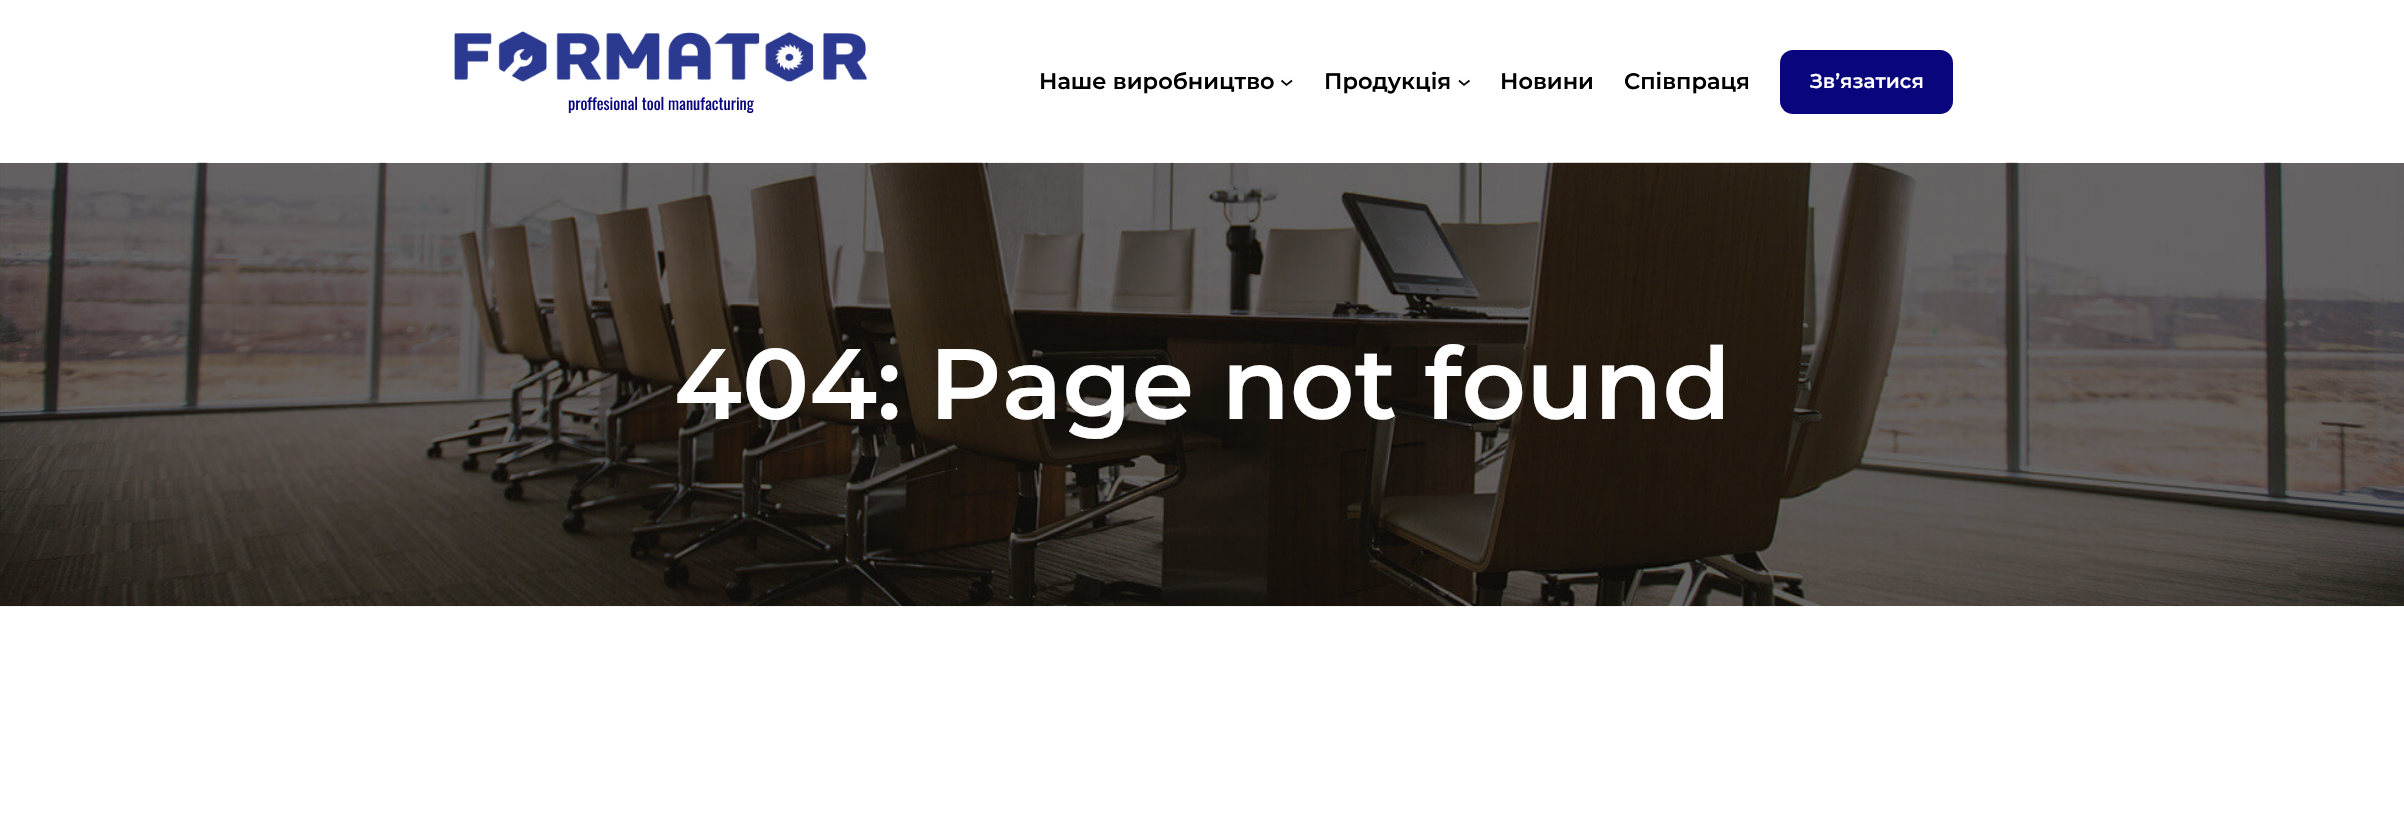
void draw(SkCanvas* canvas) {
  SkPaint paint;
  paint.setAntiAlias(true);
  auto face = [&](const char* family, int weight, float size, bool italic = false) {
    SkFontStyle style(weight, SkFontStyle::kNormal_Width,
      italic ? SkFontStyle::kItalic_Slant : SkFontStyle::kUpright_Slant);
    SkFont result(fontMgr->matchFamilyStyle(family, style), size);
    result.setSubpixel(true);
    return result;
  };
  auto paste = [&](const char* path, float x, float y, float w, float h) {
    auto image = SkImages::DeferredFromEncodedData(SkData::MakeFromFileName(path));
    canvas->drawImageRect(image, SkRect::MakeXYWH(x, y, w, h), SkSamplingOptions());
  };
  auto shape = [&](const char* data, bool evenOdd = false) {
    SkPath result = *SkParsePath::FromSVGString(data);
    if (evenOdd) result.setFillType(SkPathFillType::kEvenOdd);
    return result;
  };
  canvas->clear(0xffffffff);
  paint.setStroke(true);
  paint.setStrokeWidth(1.7f);
  paint.setColor(0xff000000);
  canvas->drawPath(shape("M1281.5 80.5L1286.5 85L1292 80.5"), paint);
  canvas->drawPath(shape("M1459 80.5L1464 85L1469.5 80.5"), paint);
  paint.setStroke(false);
  paint.setColor(0xff09057d);
  canvas->drawRoundRect(SkRect::MakeXYWH(1780, 50, 173, 64), 13, 13, paint);
  paste("img/1.png", 454, 31, 413, 51);
  paste("img/2.png", 0, 162, 2404, 445);
  auto f0 = face("Montserrat", 600, 22.5f);
  paint.setColor(0xff000000);
  {
    const struct { const char* s; float x, y; } items[] = {
      {"Наше виробництво", 1039, 89},
      {"Продукція", 1324, 89},
      {"Новини", 1500, 89},
      {"Співпраця", 1624, 89},
    };
    for (auto [s, x, y] : items) {
      canvas->drawString(s, x, y, f0, paint);
    }
  }
  auto f1 = face("Montserrat", 600, 20);
  paint.setColor(0xffffffff);
  canvas->drawString("Зв’язатися", 1810, 88, f1, paint);
  auto f2 = face("Oswald", 400, 16.25f);
  paint.setColor(0xff09057d);
  canvas->drawString("proffesional tool manufacturing", 568, 110, f2, paint);
  auto f3 = face("Montserrat", 600, 100);
  paint.setColor(0xffffffff);
  canvas->drawString("404: Page not found", 674, 419, f3, paint);
}
